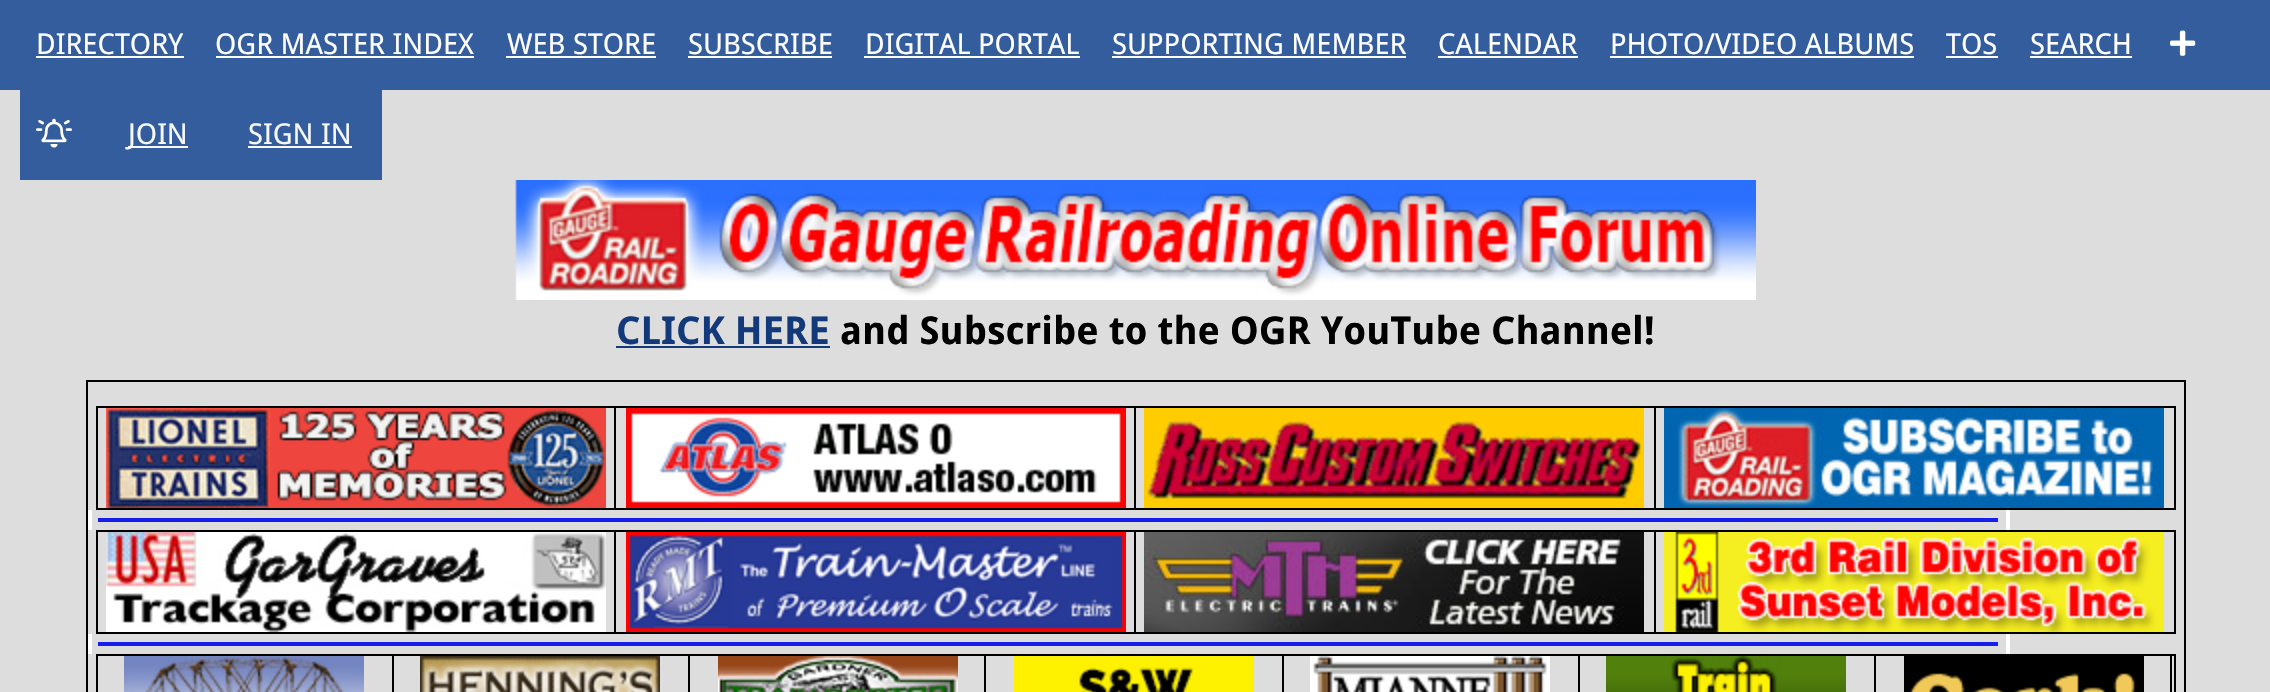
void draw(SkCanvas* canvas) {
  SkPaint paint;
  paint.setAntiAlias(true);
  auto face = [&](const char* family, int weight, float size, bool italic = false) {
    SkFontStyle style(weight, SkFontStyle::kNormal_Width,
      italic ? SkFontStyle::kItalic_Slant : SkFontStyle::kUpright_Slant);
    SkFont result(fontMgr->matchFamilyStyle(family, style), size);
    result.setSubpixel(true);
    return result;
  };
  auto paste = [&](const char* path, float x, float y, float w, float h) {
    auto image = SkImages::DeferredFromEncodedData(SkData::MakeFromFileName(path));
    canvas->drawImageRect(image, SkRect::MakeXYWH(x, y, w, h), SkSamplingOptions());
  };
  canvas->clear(0xffdddddd);
  {
    const struct { float x, y, w, h; SkColor color; } items[] = {
      {0, 0, 2270, 90, 0xff345d9e},
      {36, 56, 148, 2, 0xffffffff},
      {216, 56, 258, 2, 0xffffffff},
      {506, 56, 150, 2, 0xffffffff},
      {688, 56, 144, 2, 0xffffffff},
      {864, 56, 216, 2, 0xffffffff},
      {1112, 56, 294, 2, 0xffffffff},
      {1438, 56, 140, 2, 0xffffffff},
      {1610, 56, 304, 2, 0xffffffff},
      {1946, 56, 52, 2, 0xffffffff},
      {2030, 56, 102, 2, 0xffffffff},
    };
    for (auto [x, y, w, h, color] : items) {
      paint.setColor(color);
      canvas->drawRect(SkRect::MakeXYWH(x, y, w, h), paint);
    }
  }
  paste("img/1.png", 2170, 30, 26, 26);
  paint.setColor(0xff345d9e);
  canvas->drawRect(SkRect::MakeXYWH(20, 90, 362, 90), paint);
  paste("img/2.png", 36, 118, 36, 30);
  paint.setColor(0xfff8f8f8);
  canvas->drawRect(SkRect::MakeXYWH(128, 146, 60, 2), paint);
  canvas->drawRect(SkRect::MakeXYWH(248, 146, 104, 2), paint);
  paste("img/3.png", 515, 180, 1241, 120);
  {
    const struct { float x, y, w, h; SkColor color; } items[] = {
      {616, 346, 214, 2, 0xff123a7a},
      {86, 380, 2100, 2, 0xff000000},
      {2184, 380, 2, 312, 0xff000000},
      {86, 380, 2, 312, 0xff000000},
      {1654, 406, 522, 2, 0xff000000},
      {2174, 406, 2, 104, 0xff000000},
      {1654, 508, 522, 2, 0xff000000},
      {1654, 406, 2, 104, 0xff000000},
      {1134, 406, 522, 2, 0xff000000},
      {1134, 508, 522, 2, 0xff000000},
      {1134, 406, 2, 104, 0xff000000},
      {614, 406, 522, 2, 0xff000000},
      {614, 508, 522, 2, 0xff000000},
      {614, 406, 2, 104, 0xff000000},
      {96, 406, 520, 2, 0xff000000},
      {96, 508, 520, 2, 0xff000000},
      {96, 406, 2, 104, 0xff000000},
    };
    for (auto [x, y, w, h, color] : items) {
      paint.setColor(color);
      canvas->drawRect(SkRect::MakeXYWH(x, y, w, h), paint);
    }
  }
  paste("img/4.png", 106, 408, 500, 100);
  paste("img/5.png", 626, 408, 500, 100);
  paste("img/6.png", 1144, 408, 500, 100);
  paste("img/7.png", 1664, 408, 500, 100);
  {
    const struct { float x, y, w, h; SkColor color; } items[] = {
      {88, 510, 4, 20, 0xffffffff},
      {98, 518, 1900, 4, 0xff141eee},
      {2006, 510, 4, 20, 0xffffffff},
      {1654, 530, 522, 2, 0xff000000},
      {2174, 530, 2, 104, 0xff000000},
      {1654, 632, 522, 2, 0xff000000},
      {1654, 530, 2, 104, 0xff000000},
      {1134, 530, 522, 2, 0xff000000},
      {1134, 632, 522, 2, 0xff000000},
      {1134, 530, 2, 104, 0xff000000},
      {614, 530, 522, 2, 0xff000000},
      {614, 632, 522, 2, 0xff000000},
      {614, 530, 2, 104, 0xff000000},
      {96, 530, 520, 2, 0xff000000},
      {96, 632, 520, 2, 0xff000000},
      {96, 530, 2, 104, 0xff000000},
    };
    for (auto [x, y, w, h, color] : items) {
      paint.setColor(color);
      canvas->drawRect(SkRect::MakeXYWH(x, y, w, h), paint);
    }
  }
  paste("img/8.png", 106, 532, 500, 100);
  paste("img/9.png", 626, 532, 500, 100);
  paste("img/10.png", 1144, 532, 500, 100);
  paste("img/11.png", 1664, 532, 500, 100);
  {
    const struct { float x, y, w, h; SkColor color; } items[] = {
      {88, 634, 4, 20, 0xffffffff},
      {98, 642, 1900, 4, 0xff141eee},
      {2006, 634, 4, 20, 0xffffffff},
      {2170, 654, 6, 2, 0xff000000},
      {2170, 654, 2, 38, 0xff000000},
      {1874, 654, 298, 2, 0xff000000},
      {1874, 654, 2, 38, 0xff000000},
      {1578, 654, 298, 2, 0xff000000},
      {1578, 654, 2, 38, 0xff000000},
      {1282, 654, 298, 2, 0xff000000},
      {1282, 654, 2, 38, 0xff000000},
      {984, 654, 300, 2, 0xff000000},
      {984, 654, 2, 38, 0xff000000},
      {688, 654, 298, 2, 0xff000000},
      {688, 654, 2, 38, 0xff000000},
      {392, 654, 298, 2, 0xff000000},
      {392, 654, 2, 38, 0xff000000},
      {96, 654, 298, 2, 0xff000000},
      {96, 654, 2, 38, 0xff000000},
    };
    for (auto [x, y, w, h, color] : items) {
      paint.setColor(color);
      canvas->drawRect(SkRect::MakeXYWH(x, y, w, h), paint);
    }
  }
  paste("img/12.png", 124, 656, 240, 36);
  paste("img/13.png", 420, 656, 240, 36);
  paste("img/14.png", 718, 656, 240, 36);
  paste("img/15.png", 1014, 656, 240, 36);
  paste("img/16.png", 1310, 656, 240, 36);
  paste("img/17.png", 1606, 656, 240, 36);
  paste("img/18.png", 1904, 656, 240, 36);
  canvas->drawRect(SkRect::MakeXYWH(2174, 654, 2, 38), paint);
  auto f0 = face("Droid Sans", 400, 28.75f);
  paint.setColor(0xffffffff);
  {
    const struct { const char* s; float x, y; } items[] = {
      {"DIRECTORY", 36, 54},
      {"OGR MASTER INDEX", 215, 54},
      {"WEB STORE", 507, 54},
      {"SUBSCRIBE", 688, 54},
      {"DIGITAL PORTAL", 865, 54},
      {"SUPPORTING MEMBER", 1112, 54},
      {"CALENDAR", 1438, 54},
      {"PHOTO/VIDEO ALBUMS", 1610, 54},
      {"TOS", 1946, 54},
      {"SEARCH", 2030, 54},
    };
    for (auto [s, x, y] : items) {
      canvas->drawString(s, x, y, f0, paint);
    }
  }
  paint.setColor(0xfff8f8f8);
  canvas->drawString("JOIN", 128, 144, f0, paint);
  canvas->drawString("SIGN IN", 248, 144, f0, paint);
  auto f1 = face("Droid Sans", 700, 38.4f);
  paint.setColor(0xff123a7a);
  canvas->drawString("CLICK HERE", 616, 344, f1, paint);
  paint.setColor(0xff000000);
  canvas->drawString("and Subscribe to the OGR YouTube Channel!", 840, 344, f1, paint);
}
